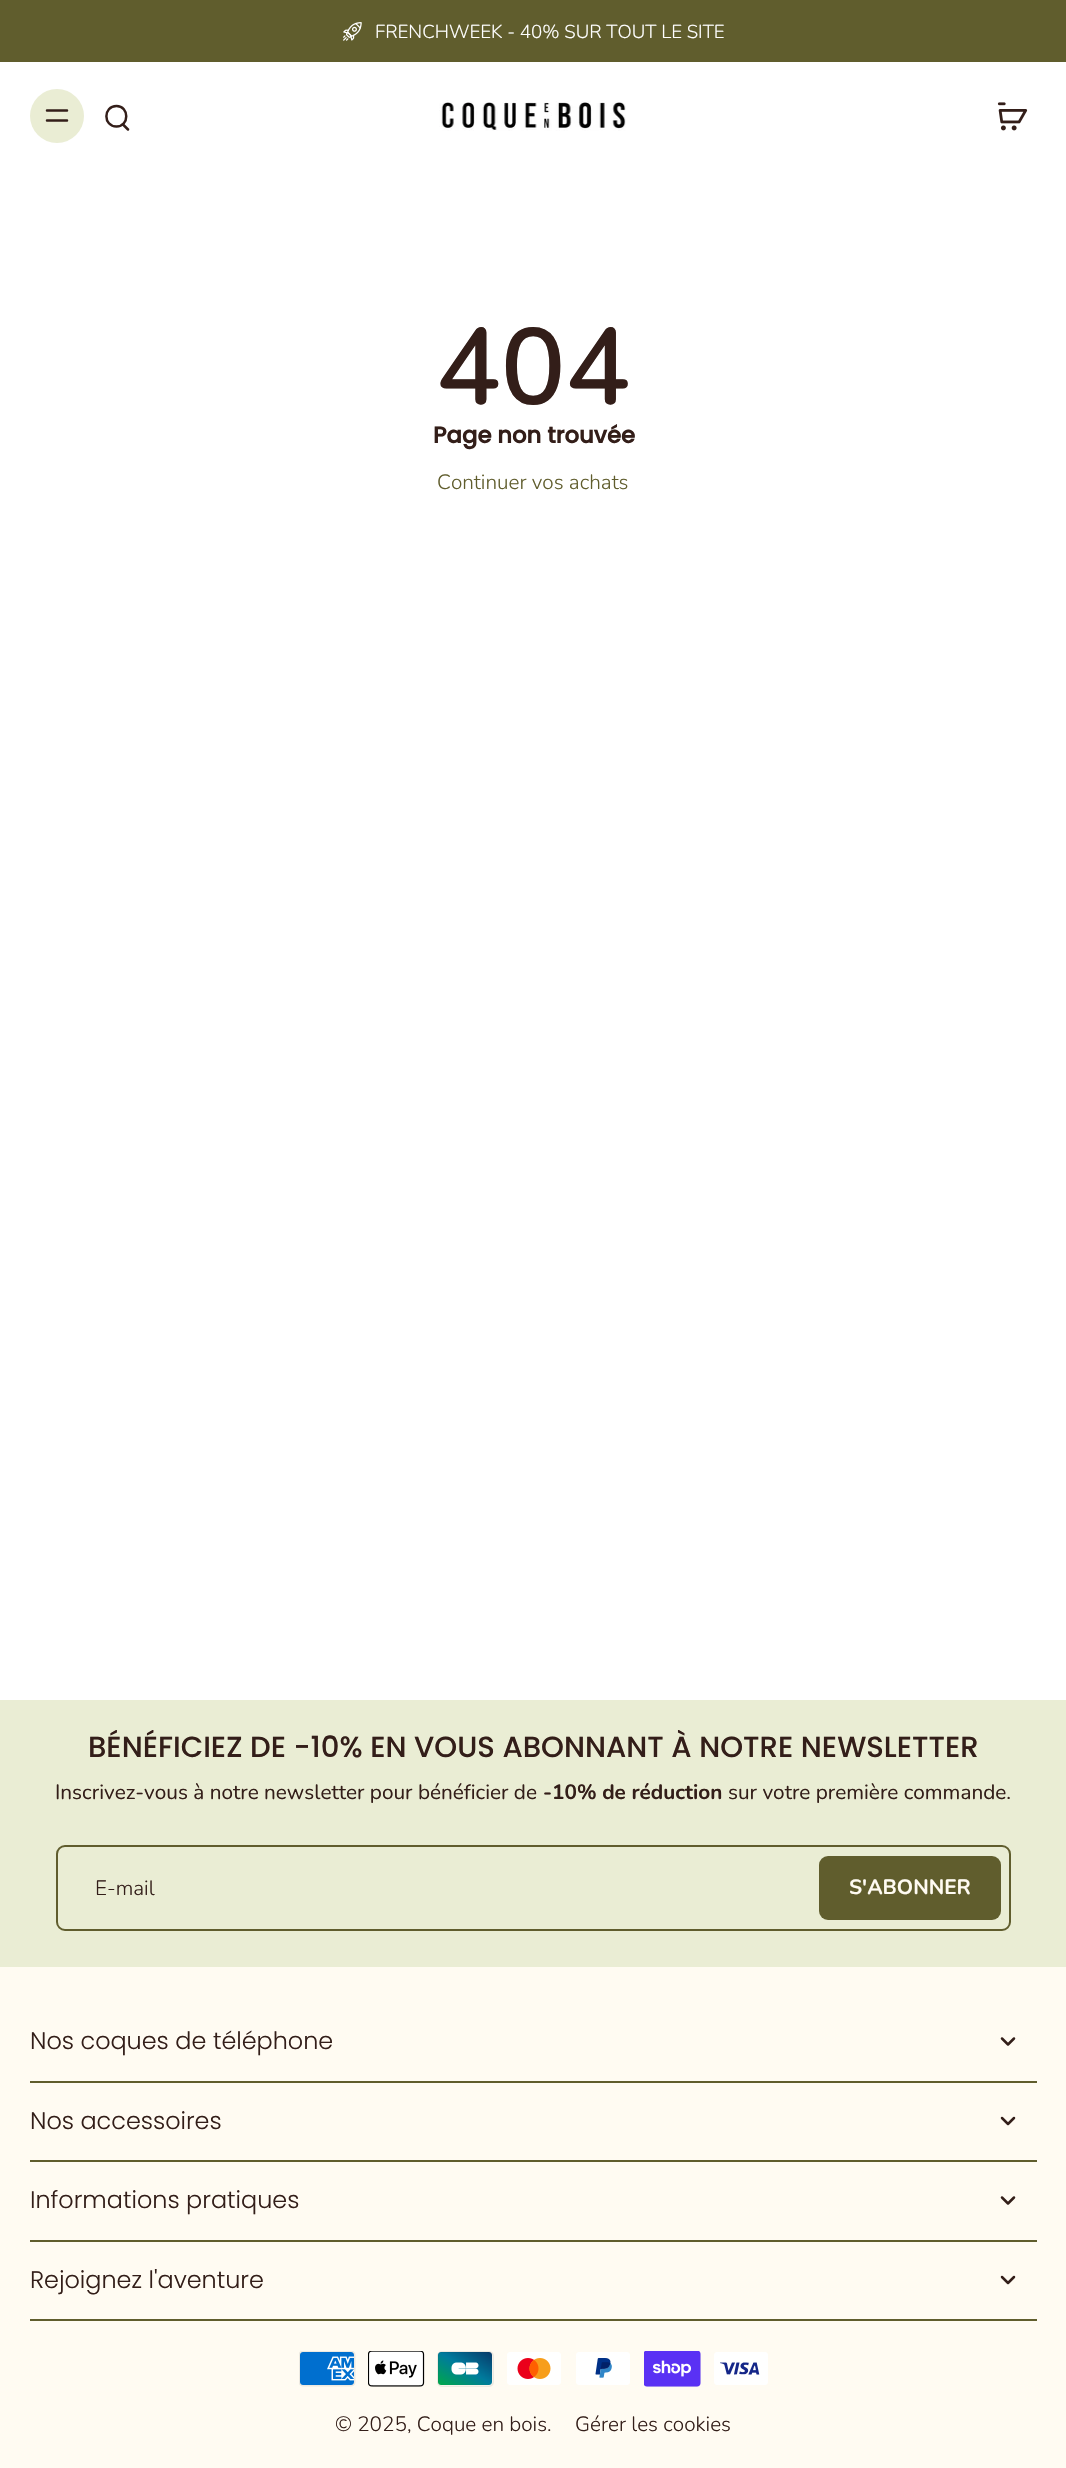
void draw(SkCanvas* canvas) {
  SkPaint paint;
  paint.setAntiAlias(true);
  auto face = [&](const char* family, int weight, float size, bool italic = false) {
    SkFontStyle style(weight, SkFontStyle::kNormal_Width,
      italic ? SkFontStyle::kItalic_Slant : SkFontStyle::kUpright_Slant);
    SkFont result(fontMgr->matchFamilyStyle(family, style), size);
    result.setSubpixel(true);
    return result;
  };
  auto paste = [&](const char* path, float x, float y, float w, float h) {
    auto image = SkImages::DeferredFromEncodedData(SkData::MakeFromFileName(path));
    canvas->drawImageRect(image, SkRect::MakeXYWH(x, y, w, h), SkSamplingOptions());
  };
  auto shape = [&](const char* data, bool evenOdd = false) {
    SkPath result = *SkParsePath::FromSVGString(data);
    if (evenOdd) result.setFillType(SkPathFillType::kEvenOdd);
    return result;
  };
  canvas->clear(0xffffffff);
  paint.setColor(0xff605d2d);
  canvas->drawRect(SkRect::MakeXYWH(0, 0, 1066, 62), paint);
  paste("img/1.png", 343, 22, 19, 19);
  paint.setColor(0xffeaedd4);
  canvas->drawCircle(57, 116, 27, paint);
  paint.setStroke(true);
  paint.setStrokeWidth(2.5f);
  paint.setStrokeCap(SkPaint::kRound_Cap);
  paint.setColor(0xff331e19);
  canvas->drawPath(shape("M47 110.5H67M47 120.5H67"), paint);
  paste("img/2.png", 439, 100, 187, 31);
  paint.setStrokeCap(SkPaint::kButt_Cap);
  canvas->drawPath(shape("M116.5 126.5C129.5 126.5 129.5 106 116.5 106C103 106 103 126.5 116.5 126.5Z"), paint);
  paint.setStrokeCap(SkPaint::kRound_Cap);
  canvas->drawPath(shape("M123 124.5L128 129.5"), paint);
  paste("img/3.png", 997, 102, 31, 29);
  paint.setStroke(false);
  paint.setColor(0xffeaedd4);
  canvas->drawRect(SkRect::MakeXYWH(0, 1700, 1066, 267), paint);
  paint.setStroke(true);
  paint.setStrokeWidth(2);
  paint.setStrokeCap(SkPaint::kButt_Cap);
  paint.setColor(0xff605d2d);
  canvas->drawRoundRect(SkRect::MakeXYWH(57, 1846, 953, 84), 8, 8, paint);
  paint.setStroke(false);
  canvas->drawRoundRect(SkRect::MakeXYWH(819, 1856, 182, 64), 9, 9, paint);
  paint.setColor(0xfffffbf2);
  canvas->drawRect(SkRect::MakeXYWH(0, 1967, 1066, 501), paint);
  paint.setColor(0xff605d2d);
  canvas->drawRect(SkRect::MakeXYWH(30, 2081, 1007, 2), paint);
  paint.setStroke(true);
  paint.setStrokeWidth(2.5f);
  paint.setStrokeCap(SkPaint::kRound_Cap);
  paint.setStrokeJoin(SkPaint::kRound_Join);
  paint.setColor(0xff331e19);
  canvas->drawPath(shape("M1002 2038.5L1008 2044.5L1014 2038.5"), paint);
  paint.setStroke(false);
  paint.setColor(0xff605d2d);
  canvas->drawRect(SkRect::MakeXYWH(30, 2160, 1007, 2), paint);
  paint.setStroke(true);
  paint.setColor(0xff331e19);
  canvas->drawPath(shape("M1002 2118L1008 2124L1014 2118"), paint);
  paint.setStroke(false);
  paint.setColor(0xff605d2d);
  canvas->drawRect(SkRect::MakeXYWH(30, 2240, 1007, 2), paint);
  paint.setStroke(true);
  paint.setColor(0xff331e19);
  canvas->drawPath(shape("M1002 2197.5L1008 2203.5L1014 2197.5"), paint);
  paint.setStroke(false);
  paint.setColor(0xff605d2d);
  canvas->drawRect(SkRect::MakeXYWH(30, 2319, 1007, 2), paint);
  paint.setStroke(true);
  paint.setColor(0xff331e19);
  canvas->drawPath(shape("M1002 2277L1008 2283L1014 2277"), paint);
  paste("img/4.png", 299, 2351, 57, 36);
  paste("img/5.png", 368, 2351, 57, 36);
  paste("img/6.png", 437, 2351, 57, 36);
  paste("img/7.png", 507, 2352, 54, 33);
  paste("img/8.png", 576, 2352, 54, 33);
  paste("img/9.png", 644, 2351, 57, 36);
  paste("img/10.png", 714, 2352, 54, 33);
  auto f0 = face("Nunito", 300, 18.75f);
  paint.setStroke(false);
  paint.setColor(0xffffffff);
  canvas->drawString("FRENCHWEEK - 40% SUR TOUT LE SITE", 375, 38, f0, paint);
  auto f1 = face("Nunito", 600, 108);
  paint.setColor(0xff331e19);
  canvas->drawString("404", 436, 404, f1, paint);
  auto f2 = face("Poppins", 700, 22.75f);
  canvas->drawString("Page non trouvée", 433, 443, f2, paint);
  auto f3 = face("Nunito", 300, 20.75f);
  paint.setColor(0xff605d2d);
  canvas->drawString("Continuer vos achats", 437, 489, f3, paint);
  canvas->save();
  canvas->clipRect(SkRect::MakeXYWH(0, 1730, 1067, 207));
  auto f4 = face("Poppins", 500, 29.15f);
  paint.setColor(0xff331e19);
  canvas->drawString("BÉNÉFICIEZ DE -10% EN VOUS ABONNANT À NOTRE NEWSLETTER", 88, 1757, f4, paint);
  canvas->restore();
  auto f5 = face("Nunito", 400, 20.75f);
  canvas->drawString("Inscrivez-vous à notre newsletter pour bénéficier de", 55, 1799, f5, paint);
  auto f6 = face("Nunito", 700, 20.75f);
  canvas->drawString("-10% de réduction", 543, 1799, f6, paint);
  canvas->drawString("sur votre première commande.", 728, 1799, f5, paint);
  canvas->drawString("E-mail", 95, 1895, f3, paint);
  paint.setColor(0xfffffbf2);
  canvas->drawString("S'ABONNER", 849, 1894, f6, paint);
  auto f7 = face("Poppins", 300, 23.9f);
  paint.setColor(0xff331e19);
  {
    const struct { const char* s; float x, y; } items[] = {
      {"Nos coques de téléphone", 30, 2049},
      {"Nos accessoires", 30, 2129},
      {"Informations pratiques", 30, 2208},
      {"Rejoignez l'aventure", 30, 2288},
    };
    for (auto [s, x, y] : items) {
      canvas->drawString(s, x, y, f7, paint);
    }
  }
  {
    const struct { const char* s; float x, y; } items[] = {
      {"© 2025, Coque en bois", 335, 2431},
      {".", 547, 2431},
      {"Gérer les cookies", 575, 2431},
    };
    for (auto [s, x, y] : items) {
      canvas->drawString(s, x, y, f3, paint);
    }
  }
}
